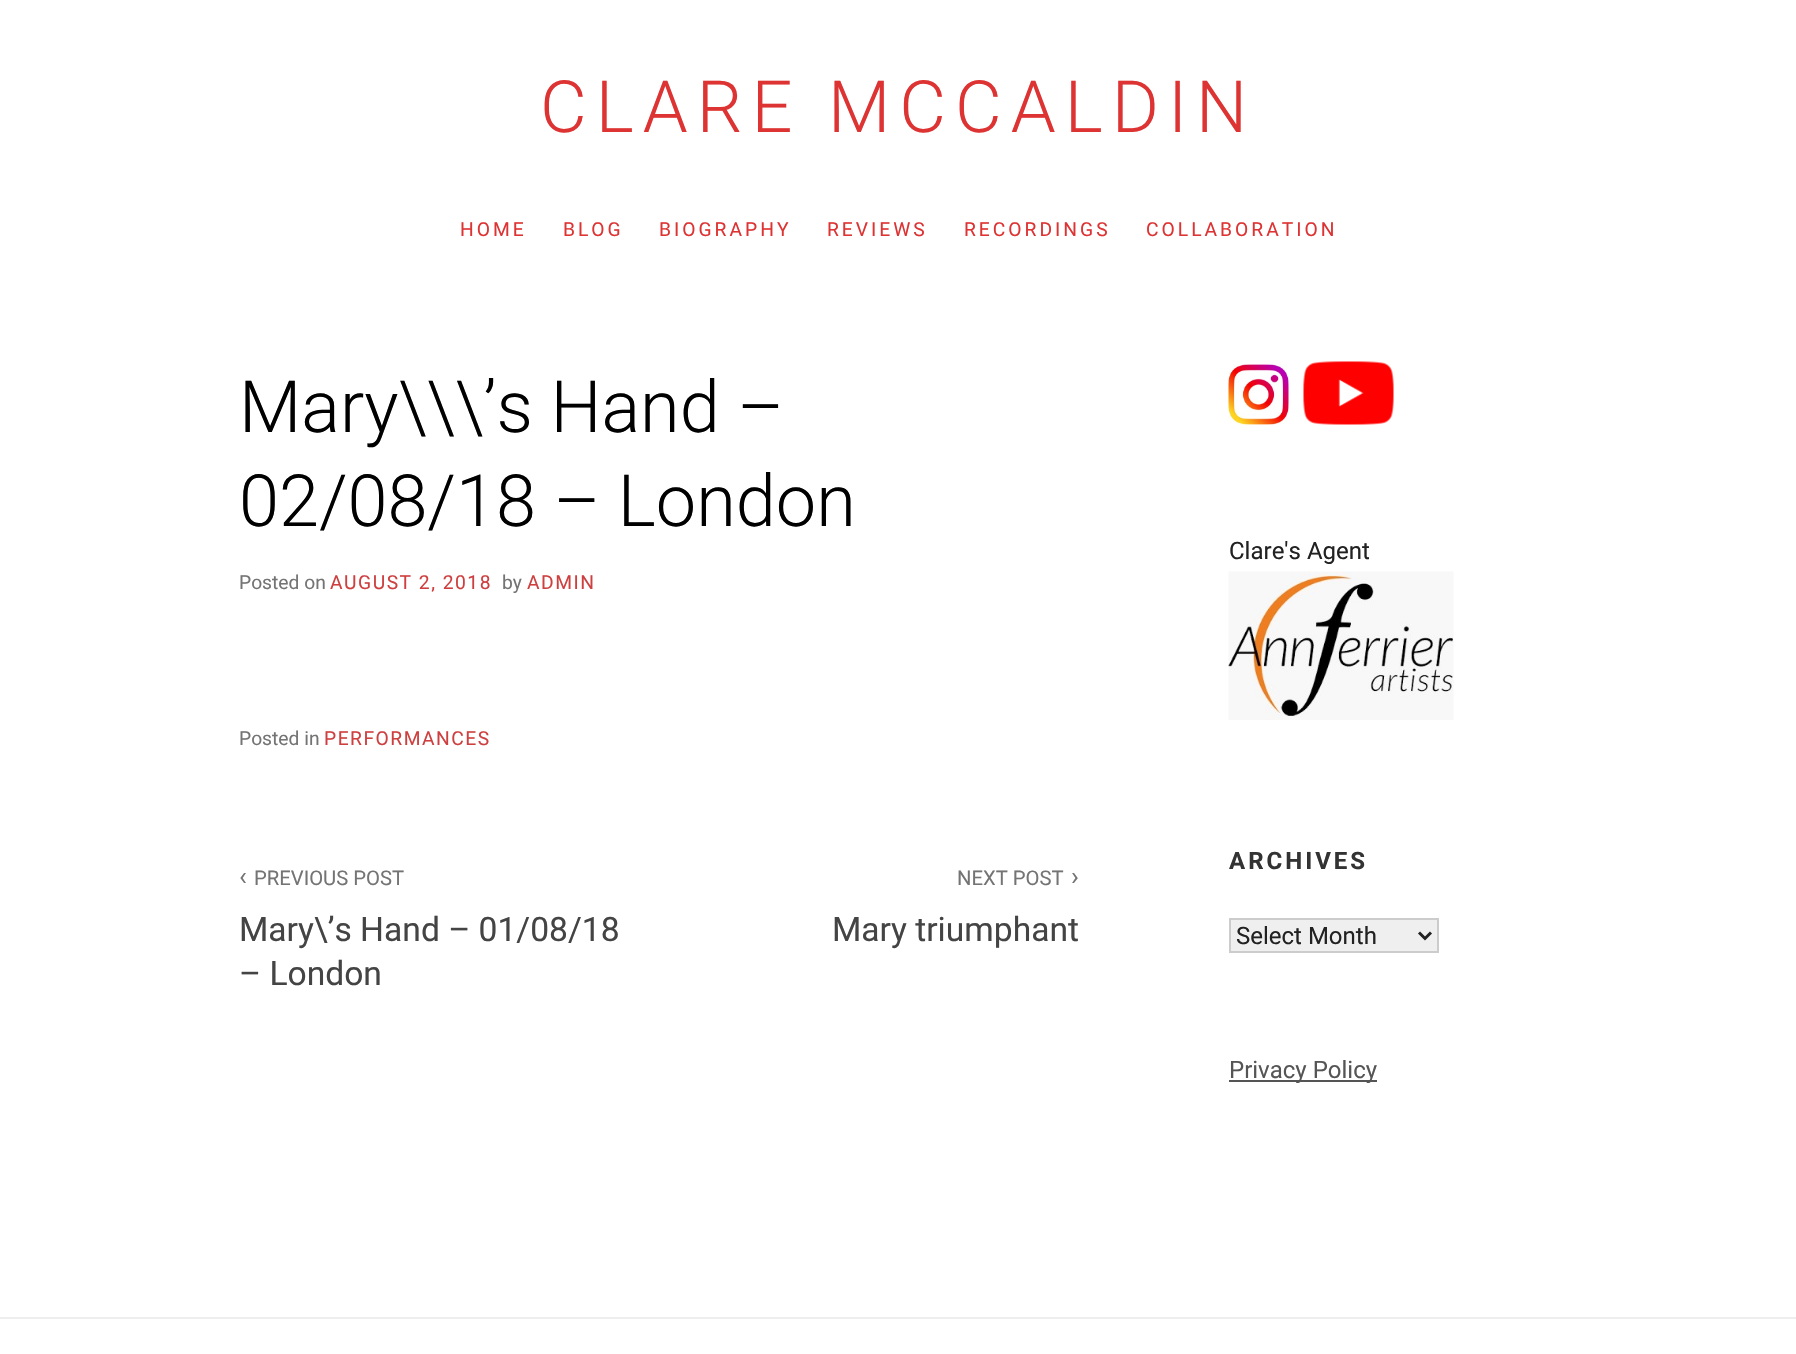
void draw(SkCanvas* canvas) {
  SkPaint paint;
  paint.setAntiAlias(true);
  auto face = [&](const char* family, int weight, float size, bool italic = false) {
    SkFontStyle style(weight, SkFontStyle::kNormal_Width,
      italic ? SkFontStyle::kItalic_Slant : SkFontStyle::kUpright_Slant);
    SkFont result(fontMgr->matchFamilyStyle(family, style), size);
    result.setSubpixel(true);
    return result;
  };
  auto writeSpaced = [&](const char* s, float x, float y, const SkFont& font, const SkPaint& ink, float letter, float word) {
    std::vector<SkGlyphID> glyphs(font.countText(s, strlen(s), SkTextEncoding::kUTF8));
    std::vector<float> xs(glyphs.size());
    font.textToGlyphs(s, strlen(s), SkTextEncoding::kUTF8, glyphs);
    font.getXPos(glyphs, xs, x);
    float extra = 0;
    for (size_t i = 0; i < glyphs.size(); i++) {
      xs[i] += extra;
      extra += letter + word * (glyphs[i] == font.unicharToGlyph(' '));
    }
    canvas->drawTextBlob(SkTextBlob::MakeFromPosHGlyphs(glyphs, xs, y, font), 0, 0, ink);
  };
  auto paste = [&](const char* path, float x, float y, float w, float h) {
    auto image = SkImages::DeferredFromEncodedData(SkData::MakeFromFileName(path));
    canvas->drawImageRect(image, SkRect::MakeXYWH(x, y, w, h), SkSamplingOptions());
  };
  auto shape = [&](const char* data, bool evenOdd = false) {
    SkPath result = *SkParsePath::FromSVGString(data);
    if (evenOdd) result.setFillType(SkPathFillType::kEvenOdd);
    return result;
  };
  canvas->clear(0xffffffff);
  paste("img/1.png", 1228, 364, 61, 61);
  paste("img/2.png", 1303, 361, 91, 64);
  paste("img/3.png", 1228, 571, 226, 149);
  paint.setColor(0xffefefef);
  canvas->drawRect(SkRect::MakeXYWH(1230, 919, 208, 33), paint);
  paint.setStroke(true);
  paint.setStrokeWidth(2);
  paint.setColor(0xffcccccc);
  canvas->drawRect(SkRect::MakeXYWH(1230, 919, 208, 33), paint);
  paint.setStrokeWidth(3);
  paint.setColor(0xff222222);
  canvas->drawPath(shape("M1419 932.5L1425 938.5L1431 932.5"), paint);
  paint.setStroke(false);
  paint.setColor(0xff555555);
  canvas->drawRect(SkRect::MakeXYWH(1229, 1080, 148, 2), paint);
  paint.setColor(0xffeeeeee);
  canvas->drawRect(SkRect::MakeXYWH(0, 1317, 1796, 2), paint);
  auto f0 = face("Roboto", 300, 72);
  paint.setColor(0xffdd3333);
  writeSpaced("CLARE MCCALDIN", 540, 132, f0, paint, 9, 0);
  auto f1 = face("Roboto", 400, 19.25f);
  {
    const struct { const char* s; float x, y; } items[] = {
      {"HOME", 460, 236},
      {"BLOG", 563, 236},
      {"BIOGRAPHY", 659, 236},
      {"REVIEWS", 827, 236},
      {"RECORDINGS", 964, 236},
      {"COLLABORATION", 1146, 236},
    };
    for (auto [s, x, y] : items) {
      writeSpaced(s, x, y, f1, paint, 3, 0);
    }
  }
  paint.setColor(0xff000000);
  canvas->drawString("Mary\\\\\\’s Hand –", 239, 432, f0, paint);
  canvas->drawString("02/08/18 – London", 239, 526, f0, paint);
  paint.setColor(0xff747474);
  canvas->drawString("Posted on", 239, 589, f1, paint);
  paint.setColor(0xffce4040);
  writeSpaced("AUGUST 2, 2018", 330, 589, f1, paint, 1.5f, 0);
  paint.setColor(0xff747474);
  canvas->drawString("by", 502, 589, f1, paint);
  paint.setColor(0xffce4040);
  writeSpaced("ADMIN", 527, 589, f1, paint, 1.5f, 0);
  paint.setColor(0xff747474);
  canvas->drawString("Posted in", 239, 745, f1, paint);
  paint.setColor(0xffce4040);
  writeSpaced("PERFORMANCES", 324, 745, f1, paint, 1.5f, 0);
  auto f2 = face("Roboto", 400, 26);
  paint.setColor(0xff747474);
  canvas->drawString("‹", 239, 885, f2, paint);
  auto f3 = face("Roboto", 400, 20.25f);
  canvas->drawString("PREVIOUS POST", 254, 885, f3, paint);
  auto f4 = face("Roboto", 400, 33.6f);
  paint.setColor(0xff444444);
  canvas->drawString("Mary\\’s Hand – 01/08/18", 239, 941, f4, paint);
  canvas->drawString("– London", 239, 985, f4, paint);
  paint.setColor(0xff747474);
  canvas->drawString("NEXT POST", 957, 885, f3, paint);
  canvas->drawString("›", 1071, 885, f2, paint);
  paint.setColor(0xff444444);
  canvas->drawString("Mary triumphant", 832, 941, f4, paint);
  auto f5 = face("Roboto", 400, 24);
  paint.setColor(0xff222222);
  canvas->drawString("Clare's Agent", 1229, 559, f5, paint);
  auto f6 = face("Roboto", 700, 24);
  paint.setColor(0xff333333);
  writeSpaced("ARCHIVES", 1229, 869, f6, paint, 3, 0);
  paint.setColor(0xff222222);
  canvas->drawString("Select Month", 1236, 944, f5, paint);
  paint.setColor(0xff555555);
  canvas->drawString("Privacy Policy", 1229, 1078, f5, paint);
}
